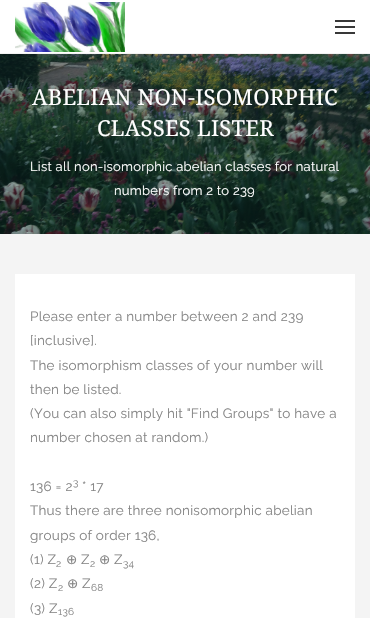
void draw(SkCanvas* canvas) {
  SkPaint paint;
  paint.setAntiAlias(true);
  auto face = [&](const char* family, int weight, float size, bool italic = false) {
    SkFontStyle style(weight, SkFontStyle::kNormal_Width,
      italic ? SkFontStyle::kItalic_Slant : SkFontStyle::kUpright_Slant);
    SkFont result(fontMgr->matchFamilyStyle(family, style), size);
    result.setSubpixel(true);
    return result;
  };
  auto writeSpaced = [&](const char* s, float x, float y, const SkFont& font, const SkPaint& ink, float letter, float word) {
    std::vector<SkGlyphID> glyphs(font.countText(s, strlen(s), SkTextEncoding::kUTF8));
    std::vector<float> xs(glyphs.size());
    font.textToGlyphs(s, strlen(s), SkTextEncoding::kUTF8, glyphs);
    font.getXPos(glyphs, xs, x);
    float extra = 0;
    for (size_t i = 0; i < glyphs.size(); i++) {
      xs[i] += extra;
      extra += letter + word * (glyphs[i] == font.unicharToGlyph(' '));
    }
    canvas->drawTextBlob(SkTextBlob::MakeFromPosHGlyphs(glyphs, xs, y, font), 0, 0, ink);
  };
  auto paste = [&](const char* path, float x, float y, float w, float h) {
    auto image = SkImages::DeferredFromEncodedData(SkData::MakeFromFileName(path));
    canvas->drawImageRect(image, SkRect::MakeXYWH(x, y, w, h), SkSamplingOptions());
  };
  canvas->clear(0xffffffff);
  paint.setColor(0xfff4f4f4);
  canvas->drawRect(SkRect::MakeXYWH(0, 234, 370, 384), paint);
  paint.setColor(0xfff2f2f2);
  canvas->drawRect(SkRect::MakeXYWH(0, 53, 370, 1), paint);
  paste("img/1.png", 15, 2, 110, 50);
  {
    const struct { float x, y, w, h; SkColor color; } items[] = {
      {335, 20, 20, 2, 0xff383838},
      {335, 26, 20, 2, 0xff383838},
      {335, 32, 20, 2, 0xff383838},
    };
    for (auto [x, y, w, h, color] : items) {
      paint.setColor(color);
      canvas->drawRect(SkRect::MakeXYWH(x, y, w, h), paint);
    }
  }
  paste("img/2.png", 0, 54, 370, 180);
  paint.setColor(0xffffffff);
  canvas->drawRect(SkRect::MakeXYWH(15, 274, 340, 344), paint);
  auto f0 = face("Droid Serif", 400, 22);
  writeSpaced("ABELIAN NON-ISOMORPHIC", 32, 105, f0, paint, 0.25f, 0);
  writeSpaced("CLASSES LISTER", 97, 136, f0, paint, 0.25f, 0);
  auto f1 = face("Raleway", 400, 13);
  writeSpaced("List all non-isomorphic abelian classes for natural", 30, 171, f1, paint, 0.25f, 0);
  writeSpaced("numbers from 2 to 239", 114, 195, f1, paint, 0.25f, 0);
  auto f2 = face("Raleway", 400, 13.5f);
  paint.setColor(0xff868686);
  {
    const struct { const char* s; float x, y; } items[] = {
      {"Please enter a number between 2 and 239", 30, 321},
      {"[inclusive].", 30, 345},
      {"The isomorphism classes of your number will", 30, 370},
      {"then be listed.", 30, 394},
      {"(You can also simply hit \"Find Groups\" to have a", 30, 418},
      {"number chosen at random.)", 30, 442},
      {"136 = 2", 30, 491},
    };
    for (auto [s, x, y] : items) {
      writeSpaced(s, x, y, f2, paint, 0.25f, 0);
    }
  }
  auto f3 = face("Raleway", 400, 10);
  writeSpaced("3", 73, 486, f3, paint, 0.25f, 0);
  {
    const struct { const char* s; float x, y; } items[] = {
      {"* 17", 82, 491},
      {"Thus there are three nonisomorphic abelian", 30, 515},
      {"groups of order 136,", 30, 540},
      {"(1) Z", 30, 564},
    };
    for (auto [s, x, y] : items) {
      writeSpaced(s, x, y, f2, paint, 0.25f, 0);
    }
  }
  writeSpaced("2", 56, 567, f3, paint, 0.25f, 0);
  auto f4 = face("DejaVu Sans", 400, 13.5f);
  writeSpaced("⊕", 66, 564, f4, paint, 0.25f, 0);
  writeSpaced("Z", 81, 564, f2, paint, 0.25f, 0);
  writeSpaced("2", 90, 567, f3, paint, 0.25f, 0);
  writeSpaced("⊕", 99, 564, f4, paint, 0.25f, 0);
  writeSpaced("Z", 114, 564, f2, paint, 0.25f, 0);
  writeSpaced("34", 123, 567, f3, paint, 0.25f, 0);
  writeSpaced("(2) Z", 30, 588, f2, paint, 0.25f, 0);
  writeSpaced("2", 58, 591, f3, paint, 0.25f, 0);
  writeSpaced("⊕", 67, 588, f4, paint, 0.25f, 0);
  writeSpaced("Z", 82, 588, f2, paint, 0.25f, 0);
  writeSpaced("68", 91, 591, f3, paint, 0.25f, 0);
  writeSpaced("(3) Z", 30, 613, f2, paint, 0.25f, 0);
  writeSpaced("136", 58, 615, f3, paint, 0.25f, 0);
}
